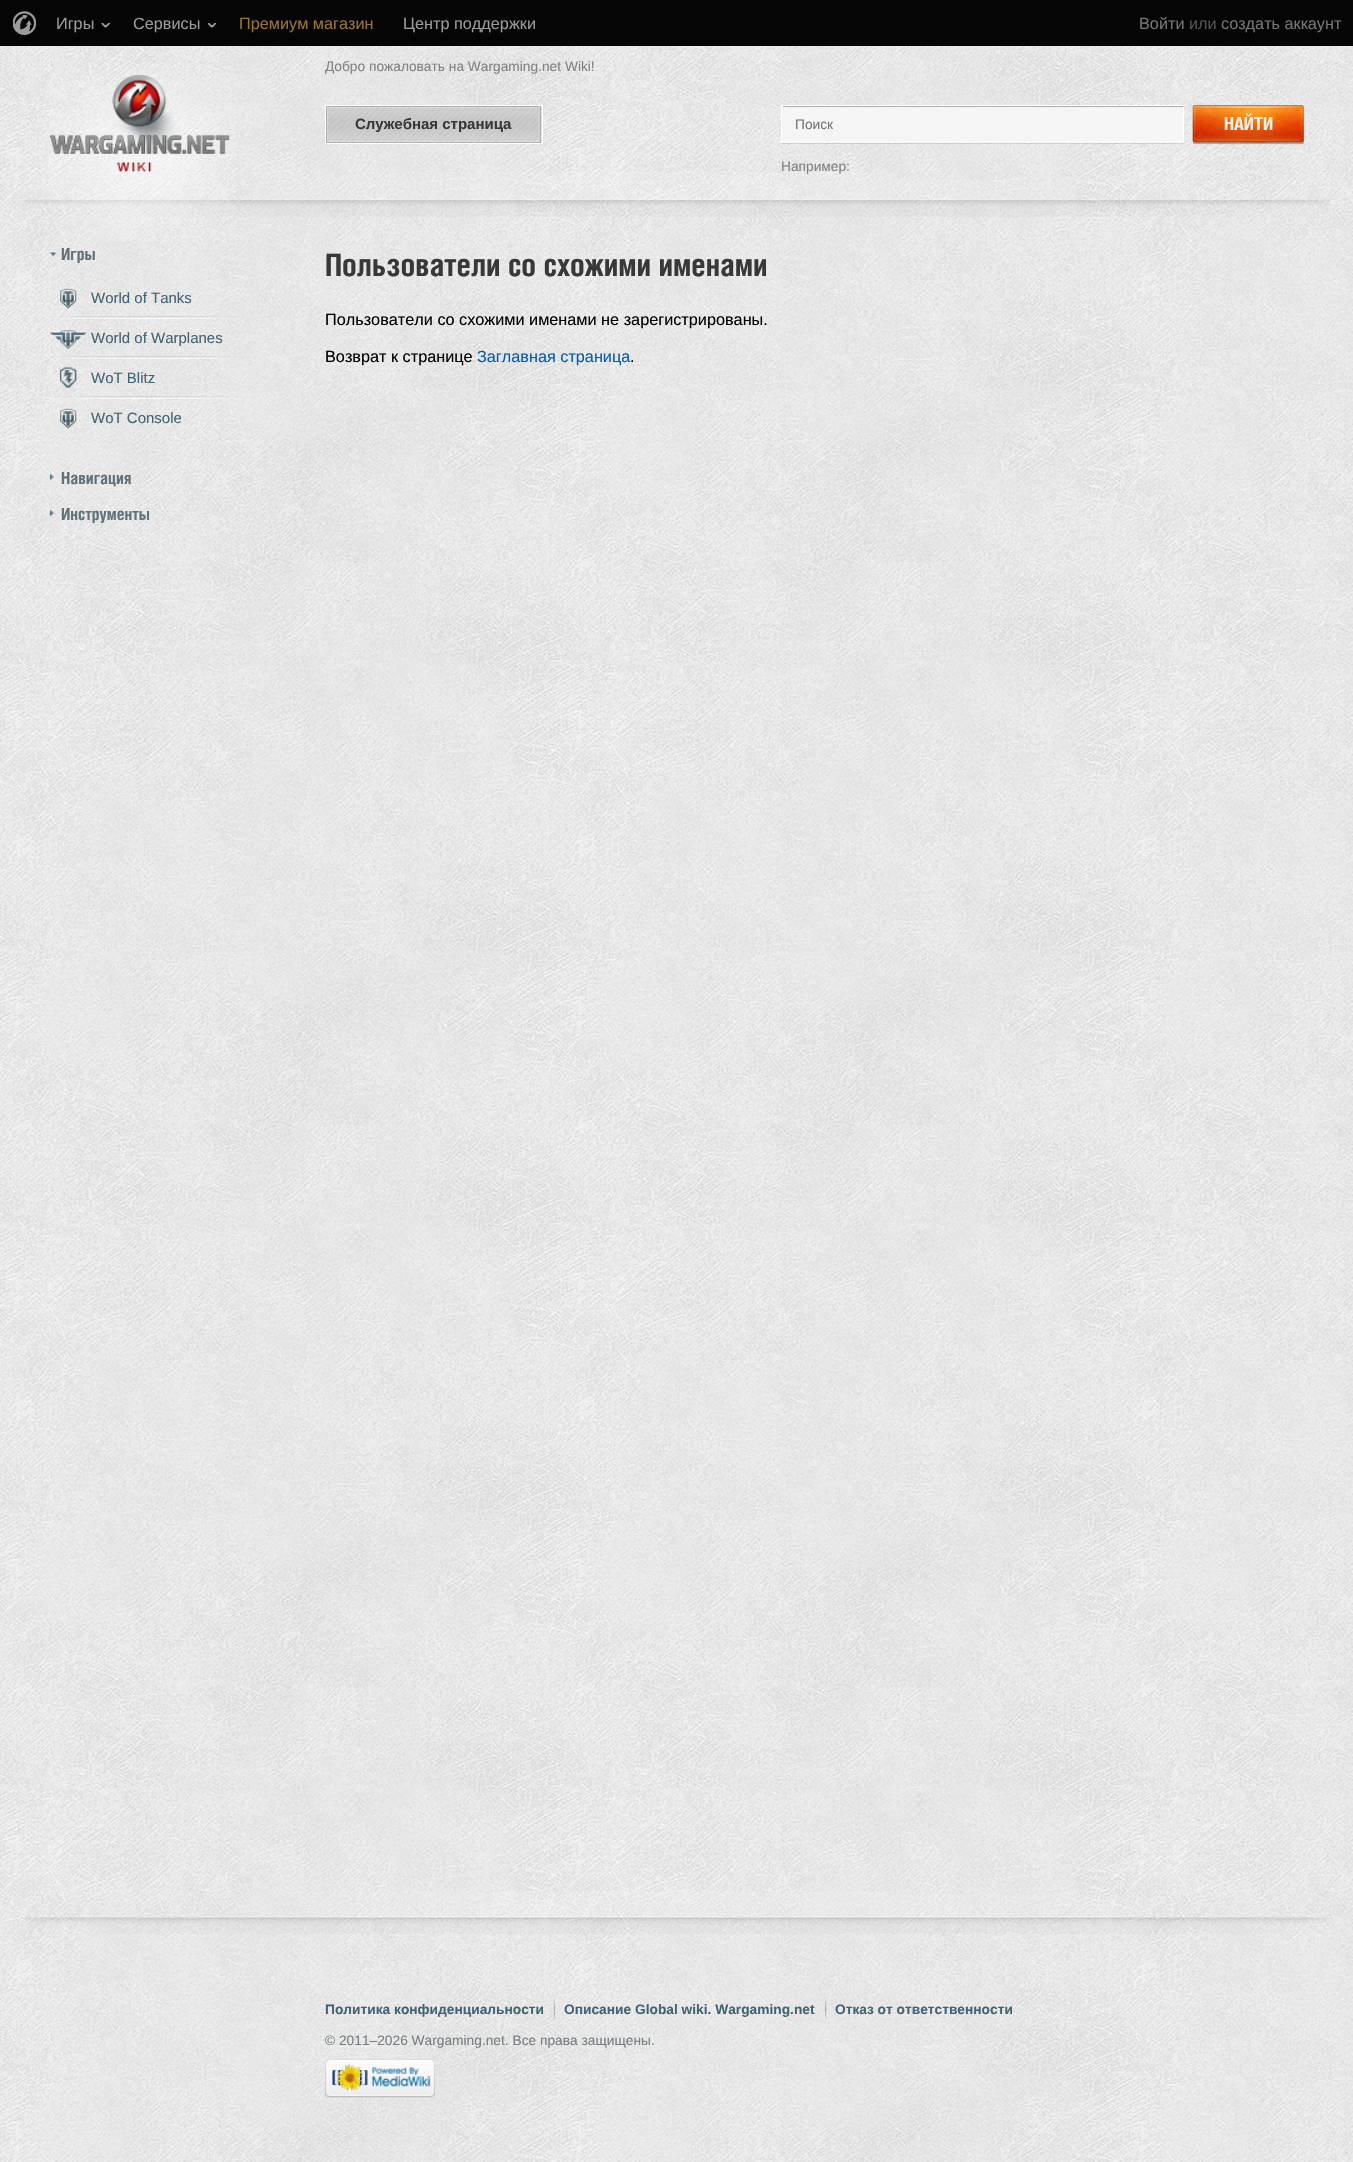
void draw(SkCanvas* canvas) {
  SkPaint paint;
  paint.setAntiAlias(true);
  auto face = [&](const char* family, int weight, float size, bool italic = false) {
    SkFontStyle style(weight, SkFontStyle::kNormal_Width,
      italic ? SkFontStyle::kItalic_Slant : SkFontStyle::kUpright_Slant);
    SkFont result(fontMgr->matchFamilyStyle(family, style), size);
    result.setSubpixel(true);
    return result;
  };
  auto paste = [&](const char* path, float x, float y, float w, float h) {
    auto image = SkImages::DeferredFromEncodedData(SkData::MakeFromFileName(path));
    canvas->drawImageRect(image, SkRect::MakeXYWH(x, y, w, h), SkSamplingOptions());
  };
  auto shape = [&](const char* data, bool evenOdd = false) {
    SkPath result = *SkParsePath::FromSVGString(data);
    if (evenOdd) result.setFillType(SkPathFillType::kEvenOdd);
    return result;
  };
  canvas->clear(0xffffffff);
  paste("img/1.png", 0, 46, 1353, 2116);
  paint.setColor(0xff050505);
  canvas->drawRect(SkRect::MakeXYWH(0, 0, 1353, 46), paint);
  paint.setStroke(true);
  paint.setStrokeWidth(1);
  paint.setColor(0x1affffff);
  canvas->drawRect(SkRect::MakeXYWH(-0.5f, -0.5f, 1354, 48), paint);
  paste("img/2.png", 13, 11, 23, 24);
  paste("img/3.png", 101, 23, 9, 5);
  paste("img/4.png", 208, 23, 8, 5);
  paste("img/10.png", 25, 172, 868, 45);
  paste("img/5.png", 49, 63, 187, 178);
  paint.setStroke(false);
  paint.setColor(0x1a000000);
  canvas->drawPath(shape("M781 106V144H1184V106V142H781Z"), paint);
  {
    const struct { float x, y, w, h; SkColor color; } items[] = {
      {782, 106, 401, 37, 0xfff5f5f5},
      {783, 106, 400, 1, 0xffacacac},
      {781, 105, 403, 1, 0xffffffff},
      {1183, 105, 1, 38, 0xffffffff},
      {781, 141, 403, 1, 0xfffafafa},
      {781, 105, 1, 38, 0xffffffff},
    };
    for (auto [x, y, w, h, color] : items) {
      paint.setColor(color);
      canvas->drawRect(SkRect::MakeXYWH(x, y, w, h), paint);
    }
  }
  paint.setColor(0x4d000000);
  paint.setMaskFilter(SkMaskFilter::MakeBlur(kNormal_SkBlurStyle, 0.5f));
  canvas->drawRoundRect(SkRect::MakeXYWH(1193, 106, 111, 38), 1, 1, paint);
  paint.setMaskFilter(nullptr);
  paste("img/6.png", 1192, 105, 75, 38);
  paste("img/7.png", 1244, 105, 60, 38);
  paint.setStroke(true);
  paint.setColor(0xffffffff);
  canvas->drawRect(SkRect::MakeXYWH(325.5f, 105.5f, 217, 38), paint);
  paint.setColor(0x40000000);
  canvas->drawRect(SkRect::MakeXYWH(326.5f, 106.5f, 214, 36), paint);
  paint.setStroke(false);
  paint.setColor(0xffcecece);
  canvas->drawRect(SkRect::MakeXYWH(539, 108, 1, 33), paint);
  paste("img/8.png", 327, 107, 175, 35);
  paste("img/9.png", 490, 107, 49, 35);
  paste("img/11.png", 892, 179, 437, 38);
  paste("img/12.png", 50, 252, 7, 5);
  paste("img/13.png", 59, 287, 19, 23);
  paste("img/14.png", 46, 316, 198, 3);
  paste("img/15.png", 49, 329, 39, 21);
  paste("img/16.png", 48, 356, 192, 3);
  paste("img/17.png", 59, 366, 18, 22);
  paste("img/18.png", 45, 396, 198, 3);
  paste("img/19.png", 59, 407, 19, 23);
  paste("img/20.png", 50, 473, 4, 8);
  paste("img/21.png", 50, 509, 4, 8);
  paste("img/22.png", 25, 1891, 868, 43);
  paste("img/23.png", 892, 1894, 437, 40);
  paste("img/24.png", 553, 1999, 2, 21);
  paste("img/25.png", 825, 1999, 2, 21);
  paste("img/26.png", 325, 2059, 110, 39);
  auto f0 = face("Liberation Sans", 400, 16.25f);
  paint.setColor(0xff9b9b9b);
  canvas->drawString("Игры", 56, 29, f0, paint);
  canvas->drawString("Сервисы", 133, 29, f0, paint);
  paint.setColor(0xff9b7430);
  canvas->drawString("Премиум магазин", 239, 29, f0, paint);
  paint.setColor(0xff9b9b9b);
  canvas->drawString("Центр поддержки", 403, 29, f0, paint);
  paint.setColor(0xff757575);
  canvas->drawString("Войти", 1139, 29, f0, paint);
  paint.setColor(0xff525454);
  canvas->drawString("или", 1189, 29, f0, paint);
  paint.setColor(0xff757575);
  canvas->drawString("создать аккаунт", 1221, 29, f0, paint);
  auto f1 = face("Liberation Sans", 400, 13.75f);
  paint.setColor(0xff828282);
  canvas->drawString("Добро пожаловать на Wargaming.net Wiki!", 325, 71, f1, paint);
  paint.setColor(0xff757575);
  canvas->drawString("Поиск", 795, 129, f1, paint);
  auto f2 = face("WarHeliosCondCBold", 700, 19);
  paint.setColor(0xffffefe6);
  canvas->drawString("НАЙТИ", 1224, 130, f2, paint);
  paint.setColor(0xff828282);
  canvas->drawString("Например:", 781, 171, f1, paint);
  auto f3 = face("Liberation Sans", 700, 15);
  paint.setColor(0xff383838);
  canvas->drawString("Служебная страница", 355, 129, f3, paint);
  auto f4 = face("WarHeliosCondCBold", 700, 17.5f);
  paint.setColor(0xff60727b);
  canvas->drawString("Игры", 61, 260, f4, paint);
  auto f5 = face("Liberation Sans", 400, 15);
  paint.setColor(0xff436373);
  {
    const struct { const char* s; float x, y; } items[] = {
      {"World of Tanks", 91, 303},
      {"World of Warplanes", 91, 343},
      {"WoT Blitz", 91, 383},
      {"WoT Console", 91, 423},
    };
    for (auto [s, x, y] : items) {
      canvas->drawString(s, x, y, f5, paint);
    }
  }
  paint.setColor(0xff60727b);
  canvas->drawString("Навигация", 61, 484, f4, paint);
  canvas->drawString("Инструменты", 61, 520, f4, paint);
  auto f6 = face("WarHeliosCondCBold", 700, 32.5f);
  paint.setColor(0xff383838);
  canvas->drawString("Пользователи со схожими именами", 325, 276, f6, paint);
  paint.setColor(0xff000000);
  canvas->drawString("Пользователи со схожими именами не зарегистрированы.", 325, 325, f0, paint);
  canvas->drawString("Возврат к странице", 325, 362, f0, paint);
  paint.setColor(0xff025db1);
  canvas->drawString("Заглавная страница", 477, 362, f0, paint);
  paint.setColor(0xff000000);
  canvas->drawString(".", 630, 362, f0, paint);
  auto f7 = face("Liberation Sans", 700, 13.75f);
  paint.setColor(0xff436373);
  {
    const struct { const char* s; float x, y; } items[] = {
      {"Политика конфиденциальности", 325, 2014},
      {"Описание Global wiki. Wargaming.net", 564, 2014},
      {"Отказ от ответственности", 835, 2014},
    };
    for (auto [s, x, y] : items) {
      canvas->drawString(s, x, y, f7, paint);
    }
  }
  paint.setColor(0xff777f82);
  canvas->drawString("© 2011–2026 Wargaming.net. Все права защищены.", 325, 2045, f1, paint);
}
